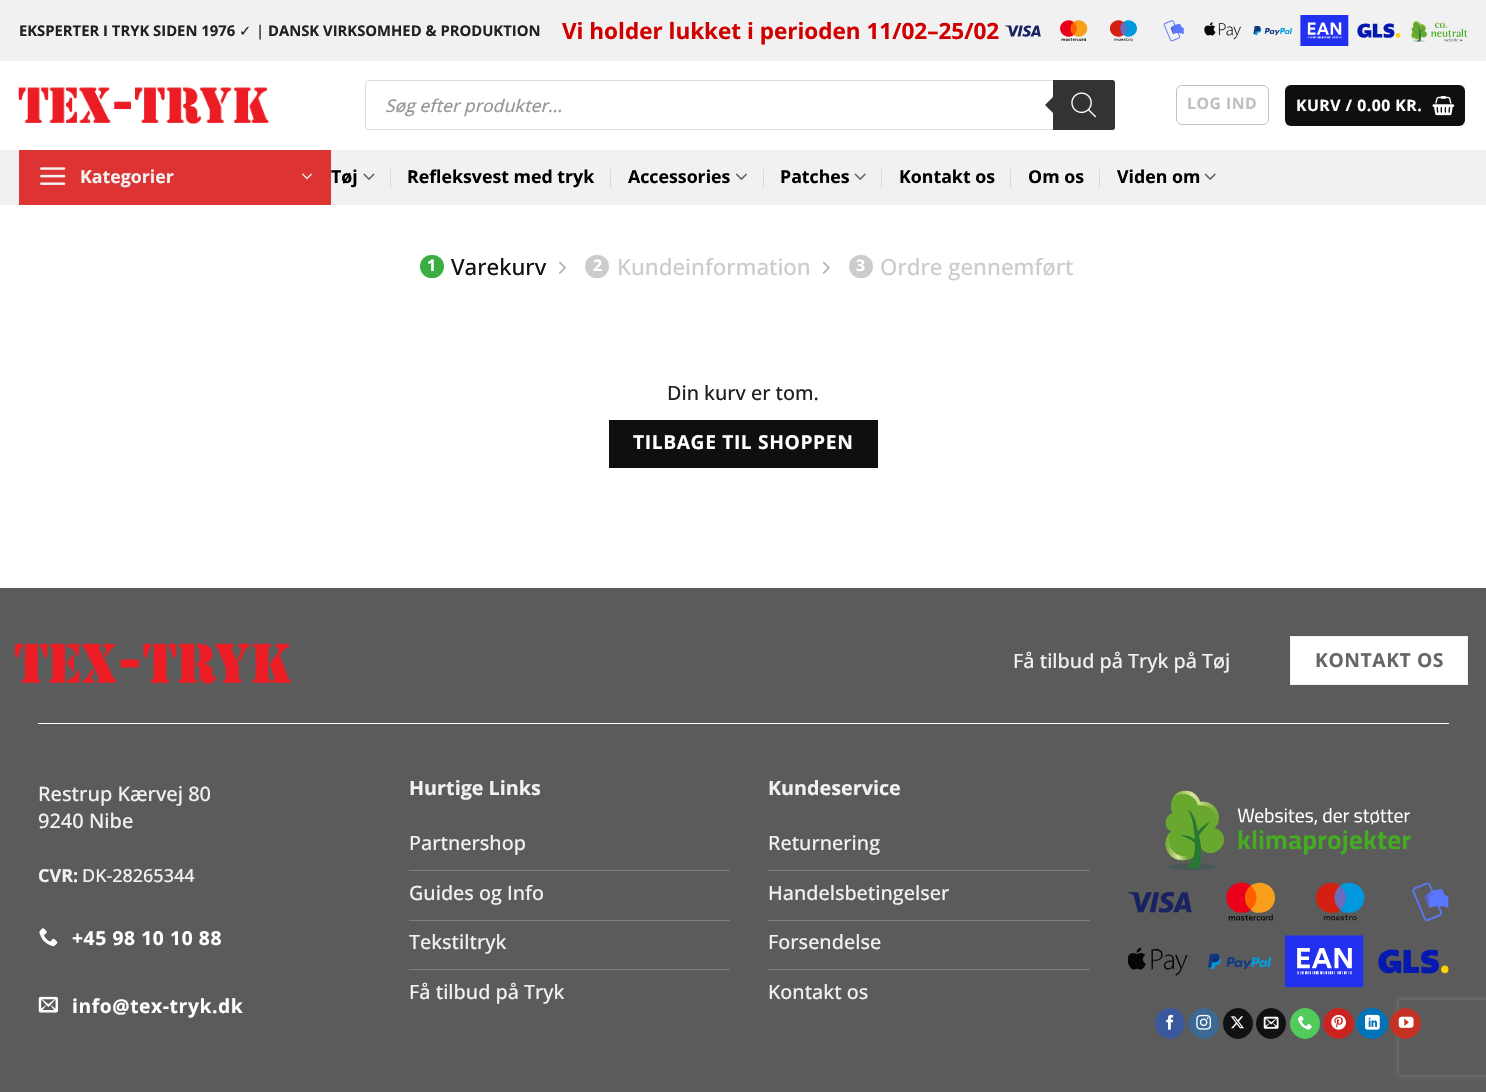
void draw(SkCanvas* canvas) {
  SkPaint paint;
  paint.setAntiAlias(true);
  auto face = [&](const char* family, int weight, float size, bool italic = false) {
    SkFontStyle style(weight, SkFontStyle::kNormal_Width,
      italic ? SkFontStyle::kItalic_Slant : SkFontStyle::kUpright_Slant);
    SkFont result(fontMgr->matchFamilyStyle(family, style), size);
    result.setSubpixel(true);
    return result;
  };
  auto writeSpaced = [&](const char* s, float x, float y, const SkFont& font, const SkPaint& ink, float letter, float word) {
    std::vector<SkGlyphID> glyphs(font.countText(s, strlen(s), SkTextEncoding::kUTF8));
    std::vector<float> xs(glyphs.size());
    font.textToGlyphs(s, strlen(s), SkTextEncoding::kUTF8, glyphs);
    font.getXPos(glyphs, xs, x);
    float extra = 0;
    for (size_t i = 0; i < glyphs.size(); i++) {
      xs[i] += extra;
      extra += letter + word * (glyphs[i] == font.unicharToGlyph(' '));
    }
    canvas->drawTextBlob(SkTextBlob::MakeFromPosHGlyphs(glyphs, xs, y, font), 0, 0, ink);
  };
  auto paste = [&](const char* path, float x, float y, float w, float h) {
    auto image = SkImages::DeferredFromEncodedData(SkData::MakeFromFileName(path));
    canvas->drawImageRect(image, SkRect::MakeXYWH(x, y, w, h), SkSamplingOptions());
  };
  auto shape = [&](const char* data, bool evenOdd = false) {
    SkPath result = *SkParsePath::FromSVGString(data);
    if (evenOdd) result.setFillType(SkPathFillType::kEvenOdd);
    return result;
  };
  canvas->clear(0xffffffff);
  paint.setColor(0xfff1f1f1);
  canvas->drawRect(SkRect::MakeXYWH(0, 0, 1486, 61), paint);
  paste("img/1.png", 1005, 15, 463, 31);
  paste("img/2.png", 18, 87, 251, 37);
  paint.setStroke(true);
  paint.setStrokeWidth(1);
  paint.setColor(0xffdddddd);
  canvas->drawRoundRect(SkRect::MakeXYWH(365.5f, 80.5f, 749, 49), 3.5f, 3.5f, paint);
  paint.setStroke(false);
  paint.setColor(0xff333333);
  canvas->drawPath(shape("M1053 80H1112.5C1114 80 1115 81 1115 82.5V127.5C1115 129 1114 130 1112.5 130H1053Z"), paint);
  canvas->drawPath(shape("M1055 95V115L1045 105Z"), paint);
  paste("img/3.png", 1071, 92, 25, 26);
  paint.setStroke(true);
  paint.setColor(0xffc0c0c0);
  canvas->drawRoundRect(SkRect::MakeXYWH(1176.5f, 85.5f, 92, 39), 5.5f, 5.5f, paint);
  paint.setStroke(false);
  paint.setColor(0xff0f0f0f);
  canvas->drawRoundRect(SkRect::MakeXYWH(1285, 85, 180, 41), 6, 6, paint);
  paint.setStroke(true);
  paint.setColor(0x0d000000);
  canvas->drawRect(SkRect::MakeXYWH(1285.5f, 85.5f, 179, 40), paint);
  paste("img/4.png", 1432, 96, 23, 20);
  paint.setStroke(false);
  paint.setColor(0xfff1f1f1);
  canvas->drawRect(SkRect::MakeXYWH(0, 150, 1486, 55), paint);
  paint.setColor(0xffdd3333);
  canvas->drawRect(SkRect::MakeXYWH(19, 150, 312, 55), paint);
  paste("img/5.png", 40, 167, 26, 18);
  paste("img/6.png", 302, 173, 10, 7);
  paste("img/7.png", 363, 173, 12, 7);
  paint.setColor(0xffd9d9d9);
  canvas->drawRect(SkRect::MakeXYWH(390, 169, 1, 19), paint);
  canvas->drawRect(SkRect::MakeXYWH(610, 169, 1, 19), paint);
  paste("img/8.png", 735, 173, 12, 7);
  canvas->drawRect(SkRect::MakeXYWH(763, 169, 1, 19), paint);
  paste("img/9.png", 854, 173, 12, 7);
  {
    const struct { float x, y, w, h; SkColor color; } items[] = {
      {881, 169, 1, 19, 0xffd9d9d9},
      {1010, 169, 1, 19, 0xffd9d9d9},
      {1099, 169, 1, 19, 0xffd9d9d9},
    };
    for (auto [x, y, w, h, color] : items) {
      paint.setColor(color);
      canvas->drawRect(SkRect::MakeXYWH(x, y, w, h), paint);
    }
  }
  paste("img/9.png", 1204, 173, 12, 7);
  paint.setColor(0xff3cad42);
  canvas->drawRoundRect(SkRect::MakeXYWH(420, 255, 24, 23), 11.5f, 11.5f, paint);
  paste("img/10.png", 559, 261, 7, 13);
  paint.setColor(0xffcccccc);
  canvas->drawRoundRect(SkRect::MakeXYWH(585, 255, 24, 23), 11.5f, 11.5f, paint);
  paste("img/11.png", 822, 261, 8, 13);
  canvas->drawRoundRect(SkRect::MakeXYWH(849, 255, 24, 23), 11.5f, 11.5f, paint);
  paint.setColor(0xff0f0f0f);
  canvas->drawRect(SkRect::MakeXYWH(609, 420, 269, 48), paint);
  paint.setColor(0xff5b5b5b);
  canvas->drawRect(SkRect::MakeXYWH(0, 588, 1486, 504), paint);
  paste("img/12.png", 15, 643, 277, 41);
  paint.setColor(0xffffffff);
  canvas->drawRect(SkRect::MakeXYWH(1290.5f, 636.5f, 177, 48), paint);
  paint.setStroke(true);
  paint.setColor(0xfff2f2f2);
  canvas->drawRect(SkRect::MakeXYWH(1290.5f, 636.5f, 177, 48), paint);
  paint.setStroke(false);
  paint.setColor(0xffffffff);
  canvas->drawRect(SkRect::MakeXYWH(38, 723, 1411, 1), paint);
  paste("img/13.png", 39, 928, 19, 19);
  paste("img/14.png", 38, 996, 20, 17);
  {
    const struct { float x, y, w, h; SkColor color; } items[] = {
      {409, 870, 321, 1, 0xff7c7c7c},
      {409, 920, 321, 1, 0xff7c7c7c},
      {409, 969, 321, 1, 0xff7c7c7c},
      {768, 870, 322, 1, 0xff7c7c7c},
      {768, 920, 322, 1, 0xff7c7c7c},
      {768, 969, 322, 1, 0xff7c7c7c},
    };
    for (auto [x, y, w, h, color] : items) {
      paint.setColor(color);
      canvas->drawRect(SkRect::MakeXYWH(x, y, w, h), paint);
    }
  }
  paste("img/15.png", 1128, 790, 321, 198);
  paint.setColor(0xff3a589d);
  canvas->drawRoundRect(SkRect::MakeXYWH(1155.5f, 1008.5f, 29, 30), 14.5f, 14.5f, paint);
  paint.setStroke(true);
  canvas->drawRoundRect(SkRect::MakeXYWH(1155.5f, 1008.5f, 29, 30), 14.5f, 14.5f, paint);
  paste("img/16.png", 1166, 1014, 8, 16);
  paint.setStroke(false);
  paint.setColor(0xff3b6994);
  canvas->drawRoundRect(SkRect::MakeXYWH(1189.5f, 1008.5f, 29, 30), 14.5f, 14.5f, paint);
  paint.setStroke(true);
  canvas->drawRoundRect(SkRect::MakeXYWH(1189.5f, 1008.5f, 29, 30), 14.5f, 14.5f, paint);
  paste("img/17.png", 1196, 1014, 15, 16);
  paint.setStroke(false);
  paint.setColor(0xff111111);
  canvas->drawRoundRect(SkRect::MakeXYWH(1223.5f, 1008.5f, 29, 30), 14.5f, 14.5f, paint);
  paint.setStroke(true);
  canvas->drawRoundRect(SkRect::MakeXYWH(1223.5f, 1008.5f, 29, 30), 14.5f, 14.5f, paint);
  paste("img/18.png", 1230, 1016, 14, 13);
  paint.setStroke(false);
  canvas->drawRoundRect(SkRect::MakeXYWH(1256.5f, 1008.5f, 29, 30), 14.5f, 14.5f, paint);
  paint.setStroke(true);
  canvas->drawRoundRect(SkRect::MakeXYWH(1256.5f, 1008.5f, 29, 30), 14.5f, 14.5f, paint);
  paste("img/19.png", 1263, 1016, 16, 13);
  paint.setStroke(false);
  paint.setColor(0xff51cb5a);
  canvas->drawRoundRect(SkRect::MakeXYWH(1290.5f, 1008.5f, 29, 30), 14.5f, 14.5f, paint);
  paint.setStroke(true);
  canvas->drawRoundRect(SkRect::MakeXYWH(1290.5f, 1008.5f, 29, 30), 14.5f, 14.5f, paint);
  paste("img/20.png", 1298, 1015, 14, 15);
  paint.setStroke(false);
  paint.setColor(0xffcb2320);
  canvas->drawCircle(1338.5f, 1023.5f, 15, paint);
  paint.setStroke(true);
  canvas->drawCircle(1338.5f, 1023.5f, 15, paint);
  paste("img/21.png", 1331, 1014, 15, 16);
  paint.setStroke(false);
  paint.setColor(0xff0072b7);
  canvas->drawRoundRect(SkRect::MakeXYWH(1356.5f, 1008.5f, 31, 30), 15, 15, paint);
  paint.setStroke(true);
  canvas->drawRoundRect(SkRect::MakeXYWH(1356.5f, 1008.5f, 31, 30), 15, 15, paint);
  paste("img/22.png", 1365, 1014, 15, 16);
  canvas->save();
  canvas->clipPath(shape("M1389 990H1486V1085H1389ZM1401.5 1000H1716.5C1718 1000 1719 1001 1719 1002.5V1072.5C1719 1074 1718 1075 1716.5 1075H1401.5C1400 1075 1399 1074 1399 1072.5V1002.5C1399 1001 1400 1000 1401.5 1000Z", true), true);
  paint.setStroke(false);
  paint.setColor(0xff808080);
  paint.setMaskFilter(SkMaskFilter::MakeBlur(kNormal_SkBlurStyle, 3));
  canvas->drawRoundRect(SkRect::MakeXYWH(1399, 1000, 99, 75), 2.5f, 2.5f, paint);
  paint.setMaskFilter(nullptr);
  canvas->restore();
  paint.setColor(0xffc33223);
  canvas->drawCircle(1405.5f, 1023.5f, 15, paint);
  paint.setStroke(true);
  canvas->drawCircle(1405.5f, 1023.5f, 15, paint);
  paste("img/23.png", 1398, 1016, 16, 12);
  auto f0 = face("Open Sans", 700, 14.8f);
  paint.setStroke(false);
  paint.setColor(0xff212121);
  canvas->drawString("EKSPERTER I TRYK SIDEN 1976", 19, 36, f0, paint);
  auto f1 = face("DejaVu Sans", 400, 14.8f);
  canvas->drawString("✓", 239, 36, f1, paint);
  auto f2 = face("Open Sans", 500, 14.8f);
  canvas->drawString("|", 256, 36, f2, paint);
  canvas->drawString("DANSK VIRKSOMHED & PRODUKTION", 268, 36, f0, paint);
  auto f3 = face("Open Sans", 700, 22.5f);
  paint.setColor(0xffd10000);
  canvas->drawString("Vi holder lukket i perioden 11/02–25/02", 562, 39, f3, paint);
  auto f4 = face("Open Sans", 500, 17.5f, true);
  paint.setColor(0xff999999);
  canvas->drawString("Søg efter produkter...", 385, 112, f4, paint);
  auto f5 = face("Open Sans", 700, 15.75f);
  paint.setColor(0xffc0c0c0);
  writeSpaced("LOG IND", 1187, 109, f5, paint, 0.5f, 0);
  paint.setColor(0xffffffff);
  writeSpaced("KURV / 0.00 KR.", 1296, 111, f5, paint, 0.5f, 0);
  auto f6 = face("Open Sans", 700, 17.75f);
  paint.setColor(0xfff1f1f1);
  canvas->drawString("Kategorier", 80, 183, f6, paint);
  paint.setColor(0xff000000);
  {
    const struct { const char* s; float x, y; } items[] = {
      {"Tøj", 331, 183},
      {"Refleksvest med tryk", 407, 183},
      {"Accessories", 628, 183},
      {"Patches", 780, 183},
      {"Kontakt os", 899, 183},
      {"Om os", 1028, 183},
      {"Viden om", 1117, 183},
    };
    for (auto [s, x, y] : items) {
      canvas->drawString(s, x, y, f6, paint);
    }
  }
  auto f7 = face("Open Sans", 700, 16);
  paint.setColor(0xffffffff);
  canvas->drawString("1", 427, 271, f7, paint);
  auto f8 = face("Open Sans", 500, 22.25f);
  paint.setColor(0xff111111);
  canvas->drawString("Varekurv", 451, 275, f8, paint);
  paint.setColor(0xffffffff);
  canvas->drawString("2", 593, 271, f7, paint);
  paint.setColor(0xffcccccc);
  canvas->drawString("Kundeinformation", 617, 275, f8, paint);
  paint.setColor(0xffffffff);
  canvas->drawString("3", 856, 271, f7, paint);
  paint.setColor(0xffcccccc);
  canvas->drawString("Ordre gennemført", 880, 275, f8, paint);
  auto f9 = face("Open Sans", 500, 19.75f);
  paint.setColor(0xff212121);
  canvas->drawString("Din kurv er tom.", 667, 400, f9, paint);
  auto f10 = face("Open Sans", 700, 19.25f);
  paint.setColor(0xffffffff);
  writeSpaced("TILBAGE TIL SHOPPEN", 633, 449, f10, paint, 0.6f, 0);
  paint.setColor(0xfff1f1f1);
  canvas->drawString("Få tilbud på Tryk på Tøj", 1013, 668, f9, paint);
  paint.setColor(0xff666666);
  writeSpaced("KONTAKT OS", 1315, 667, f10, paint, 0.6f, 0);
  auto f11 = face("Open Sans", 500, 20);
  paint.setColor(0xfff1f1f1);
  canvas->drawString("Restrup Kærvej 80", 38, 801, f11, paint);
  canvas->drawString("9240 Nibe", 38, 828, f11, paint);
  auto f12 = face("Open Sans", 700, 18);
  canvas->drawString("CVR:", 38, 882, f12, paint);
  auto f13 = face("Open Sans", 500, 18);
  canvas->drawString("DK-28265344", 82, 882, f13, paint);
  paint.setColor(0xffffffff);
  writeSpaced("+45 98 10 10 88", 72, 945, f10, paint, 0.6f, 0);
  writeSpaced("info@tex-tryk.dk", 72, 1013, f10, paint, 0.6f, 0);
  auto f14 = face("Open Sans", 700, 19.75f);
  paint.setColor(0xfff1f1f1);
  canvas->drawString("Hurtige Links", 409, 795, f14, paint);
  {
    const struct { const char* s; float x, y; } items[] = {
      {"Partnershop", 409, 850},
      {"Guides og Info", 409, 900},
      {"Tekstiltryk", 409, 949},
      {"Få tilbud på Tryk", 409, 999},
    };
    for (auto [s, x, y] : items) {
      canvas->drawString(s, x, y, f9, paint);
    }
  }
  canvas->drawString("Kundeservice", 768, 795, f14, paint);
  {
    const struct { const char* s; float x, y; } items[] = {
      {"Returnering", 768, 850},
      {"Handelsbetingelser", 768, 900},
      {"Forsendelse", 768, 949},
      {"Kontakt os", 768, 999},
    };
    for (auto [s, x, y] : items) {
      canvas->drawString(s, x, y, f9, paint);
    }
  }
}
